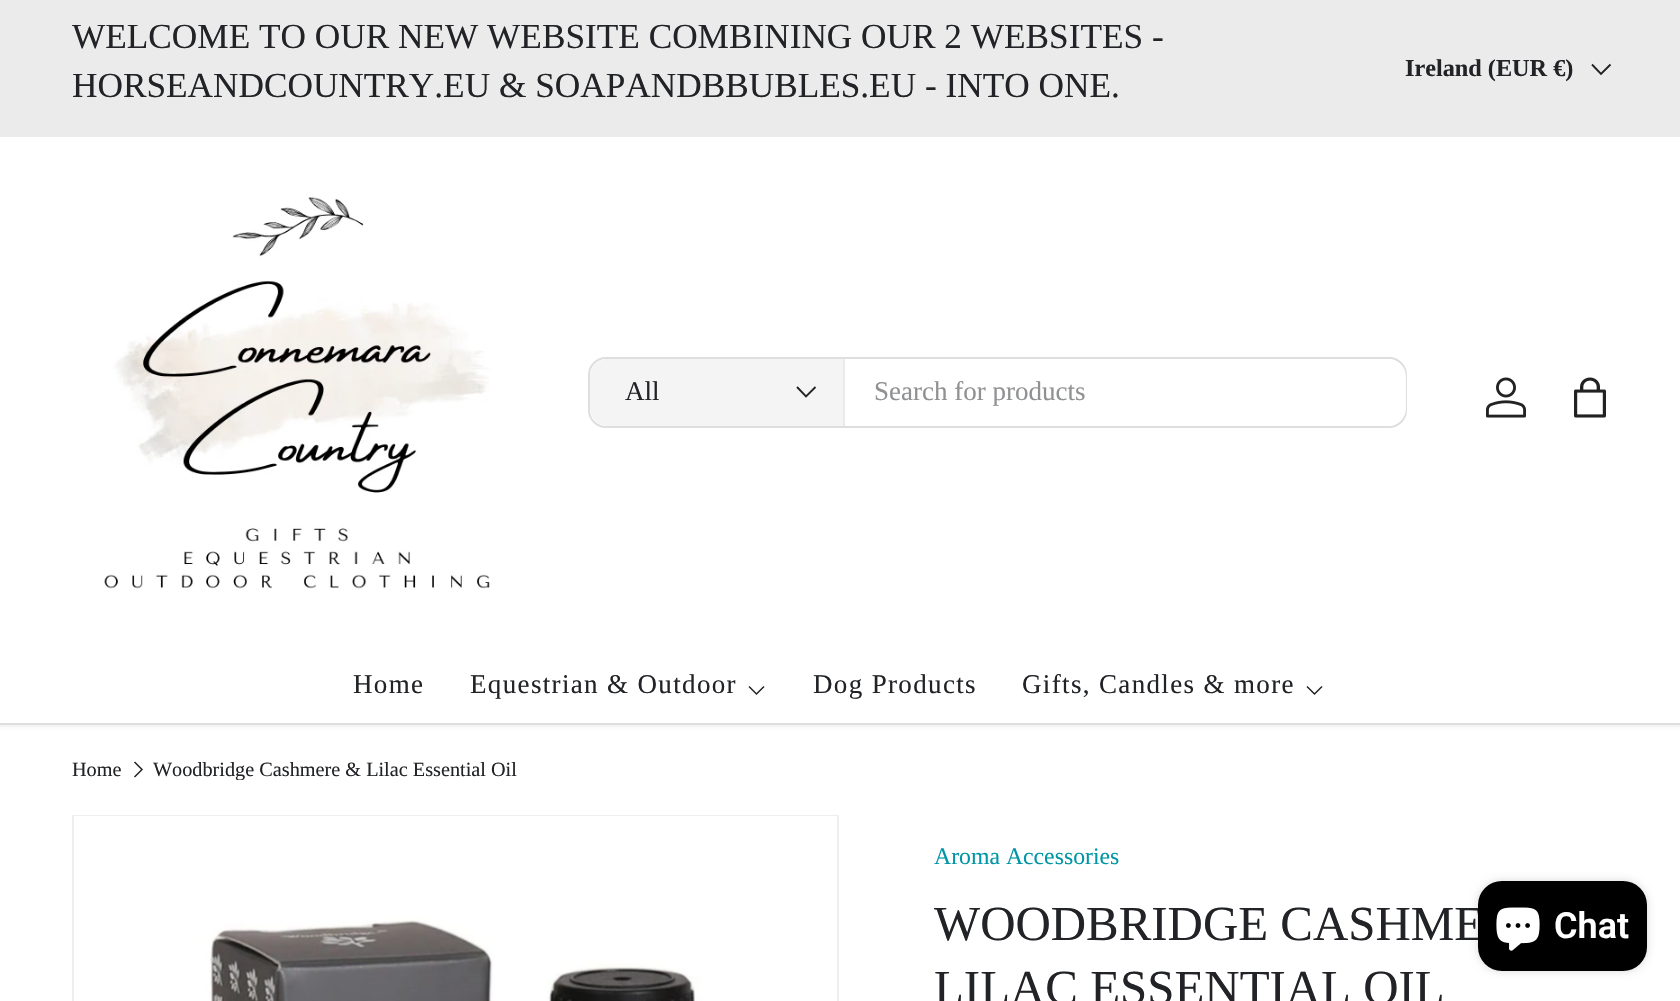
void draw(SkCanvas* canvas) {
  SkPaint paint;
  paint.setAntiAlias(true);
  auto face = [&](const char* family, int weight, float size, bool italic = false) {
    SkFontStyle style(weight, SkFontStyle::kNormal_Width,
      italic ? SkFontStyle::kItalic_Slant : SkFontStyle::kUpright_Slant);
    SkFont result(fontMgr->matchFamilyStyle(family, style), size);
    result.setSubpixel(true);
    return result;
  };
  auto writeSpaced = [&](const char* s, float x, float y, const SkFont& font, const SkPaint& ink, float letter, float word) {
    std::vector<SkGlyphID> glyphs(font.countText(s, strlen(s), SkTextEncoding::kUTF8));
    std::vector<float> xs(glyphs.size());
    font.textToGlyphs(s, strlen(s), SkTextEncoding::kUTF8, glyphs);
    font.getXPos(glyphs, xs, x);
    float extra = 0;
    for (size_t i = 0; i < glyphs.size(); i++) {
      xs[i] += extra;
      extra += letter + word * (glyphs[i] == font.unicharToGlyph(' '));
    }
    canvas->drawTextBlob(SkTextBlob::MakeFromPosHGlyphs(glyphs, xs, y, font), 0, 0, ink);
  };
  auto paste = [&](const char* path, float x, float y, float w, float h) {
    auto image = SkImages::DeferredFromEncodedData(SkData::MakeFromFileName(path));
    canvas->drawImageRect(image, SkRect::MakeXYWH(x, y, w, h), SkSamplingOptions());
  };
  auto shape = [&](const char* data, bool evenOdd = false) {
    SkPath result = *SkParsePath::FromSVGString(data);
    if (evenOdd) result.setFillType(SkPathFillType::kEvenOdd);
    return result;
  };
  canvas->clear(0xffffffff);
  paint.setColor(0x14000000);
  paint.setMaskFilter(SkMaskFilter::MakeBlur(kNormal_SkBlurStyle, 2));
  canvas->drawRect(SkRect::MakeXYWH(-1, 135, 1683, 591), paint);
  paint.setMaskFilter(nullptr);
  paint.setColor(0xffebebeb);
  canvas->drawRect(SkRect::MakeXYWH(0, 0, 1680, 137), paint);
  paint.setStroke(true);
  paint.setStrokeWidth(1.9f);
  paint.setColor(0xff222222);
  canvas->drawPath(shape("M1610.5 64.5L1601 74L1592 64.5"), paint);
  paint.setStroke(false);
  paint.setColor(0xffffffff);
  canvas->drawRect(SkRect::MakeXYWH(0, 137, 1680, 586), paint);
  paste("img/1.png", 104, 194, 386, 396);
  paint.setStroke(true);
  paint.setStrokeWidth(2);
  paint.setColor(0xffdedede);
  canvas->drawRoundRect(SkRect::MakeXYWH(589, 358, 817, 69), 17, 17, paint);
  paint.setStroke(false);
  paint.setColor(0xffffffff);
  canvas->drawRoundRect(SkRect::MakeXYWH(590, 359, 816, 67), 18, 18, paint);
  paint.setColor(0xfff4f4f4);
  canvas->drawPath(shape("M608 359H845V426H608C598 426 590 418 590 408V377C590 367 598 359 608 359Z"), paint);
  paint.setColor(0xffe9eaea);
  canvas->drawRect(SkRect::MakeXYWH(843, 359, 2, 67), paint);
  paint.setStroke(true);
  paint.setStrokeWidth(1.9f);
  paint.setColor(0xff212326);
  canvas->drawPath(shape("M815.5 387L806 396.5L797 387"), paint);
  paste("img/2.png", 1486, 377, 40, 41);
  paste("img/3.png", 1574, 377, 32, 41);
  paint.setStrokeWidth(1.5f);
  paint.setColor(0xff222222);
  canvas->drawPath(shape("M764 686.5L756.5 694L749 686.5"), paint);
  canvas->drawPath(shape("M1322 686.5L1314.5 694L1307 686.5"), paint);
  paint.setStroke(false);
  paint.setColor(0xffdedede);
  canvas->drawRect(SkRect::MakeXYWH(0, 723, 1680, 2), paint);
  paint.setStroke(true);
  paint.setColor(0xff212326);
  canvas->drawPath(shape("M134.5 762L142 769.5L134.5 777"), paint);
  paint.setStrokeWidth(2);
  paint.setColor(0xffeeeeee);
  canvas->drawRect(SkRect::MakeXYWH(73, 816, 765, 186), paint);
  paste("img/4.png", 74, 816, 763, 185);
  paint.setStroke(false);
  paint.setColor(0x26000000);
  paint.setMaskFilter(SkMaskFilter::MakeBlur(kNormal_SkBlurStyle, 4));
  canvas->drawRoundRect(SkRect::MakeXYWH(1478, 881, 169, 90), 24, 24, paint);
  paint.setMaskFilter(nullptr);
  auto f0 = face("Liberation Serif", 400, 35.25f);
  paint.setColor(0xff212326);
  canvas->drawString("WELCOME TO OUR NEW WEBSITE COMBINING OUR 2 WEBSITES -", 72, 48, f0, paint);
  canvas->drawString("HORSEANDCOUNTRY.EU & SOAPANDBBUBLES.EU - INTO ONE.", 72, 97, f0, paint);
  auto f1 = face("Liberation Serif", 700, 24.25f);
  canvas->drawString("Ireland (EUR €)", 1405, 76, f1, paint);
  auto f2 = face("Liberation Serif", 400, 27);
  canvas->drawString("All", 625, 400, f2, paint);
  paint.setColor(0xff909193);
  canvas->drawString("Search for products", 874, 400, f2, paint);
  paint.setColor(0xff212326);
  {
    const struct { const char* s; float x, y; } items[] = {
      {"Home", 353, 693},
      {"Equestrian & Outdoor", 470, 693},
      {"Dog Products", 813, 693},
      {"Gifts, Candles & more", 1022, 693},
    };
    for (auto [s, x, y] : items) {
      writeSpaced(s, x, y, f2, paint, 1.35f, 0);
    }
  }
  auto f3 = face("Liberation Serif", 400, 20.25f);
  canvas->drawString("Home", 72, 776, f3, paint);
  canvas->save();
  canvas->clipRect(SkRect::MakeXYWH(153, 759, 365, 21));
  canvas->drawString("Woodbridge Cashmere & Lilac Essential Oil", 153, 776, f3, paint);
  canvas->restore();
  auto f4 = face("Liberation Serif", 400, 23.75f);
  paint.setColor(0xff0096a6);
  canvas->drawString("Aroma Accessories", 934, 864, f4, paint);
  auto f5 = face("Liberation Serif", 400, 48.9f);
  paint.setColor(0xff212326);
  canvas->drawString("WOODBRIDGE CASHME", 934, 940, f5, paint);
  canvas->drawString("LILAC ESSENTIAL OIL", 934, 1004, f5, paint);
  paint.setColor(0xff000000);
  canvas->drawRoundRect(SkRect::MakeXYWH(1478, 881, 169, 90), 24, 24, paint);
  paste("img/5.png", 1496, 907, 44, 44);
  auto f6 = face("Roboto", 600, 36);
  paint.setColor(0xffffffff);
  canvas->drawString("Chat", 1554, 938, f6, paint);
}
